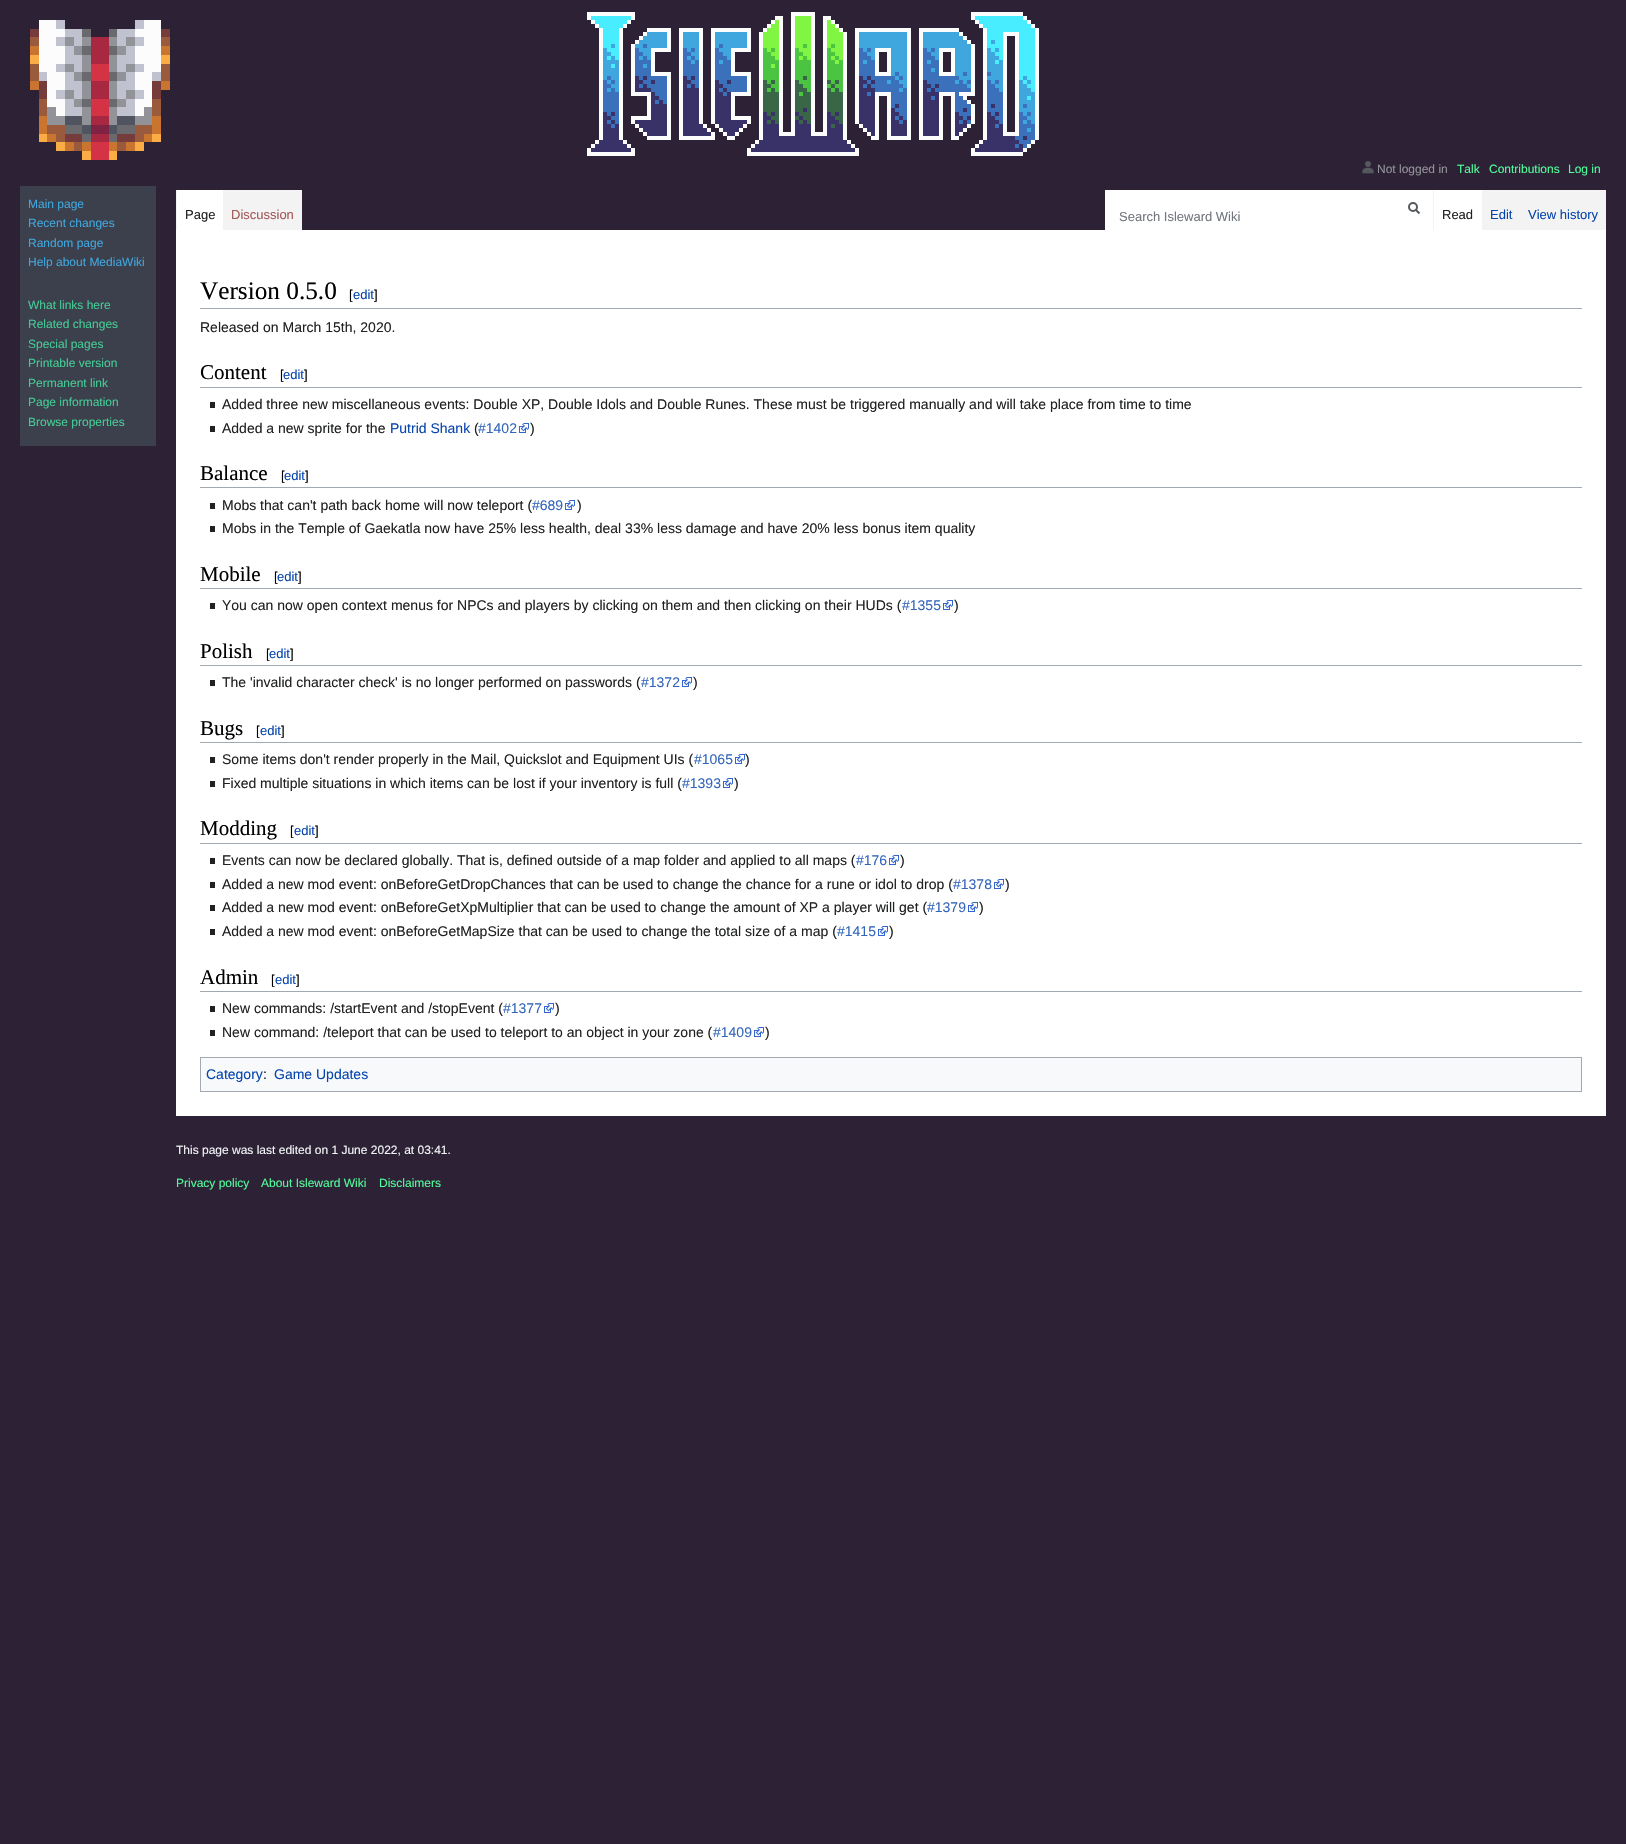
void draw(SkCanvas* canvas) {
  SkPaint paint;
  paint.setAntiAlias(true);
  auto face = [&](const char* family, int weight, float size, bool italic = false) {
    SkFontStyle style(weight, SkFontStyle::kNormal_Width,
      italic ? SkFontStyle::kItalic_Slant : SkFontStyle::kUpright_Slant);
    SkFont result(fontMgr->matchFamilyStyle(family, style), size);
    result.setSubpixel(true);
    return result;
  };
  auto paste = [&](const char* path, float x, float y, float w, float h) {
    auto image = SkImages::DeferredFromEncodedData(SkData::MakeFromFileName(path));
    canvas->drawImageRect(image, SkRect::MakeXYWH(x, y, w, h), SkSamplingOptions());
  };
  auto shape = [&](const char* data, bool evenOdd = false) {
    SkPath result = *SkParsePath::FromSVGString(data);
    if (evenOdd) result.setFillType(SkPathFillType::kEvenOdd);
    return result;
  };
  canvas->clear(0xff2d2136);
  paste("img/1.png", 587, 12, 452, 144);
  paste("img/2.png", 1362, 161, 12, 13);
  {
    const struct { float x, y, w, h; SkColor color; } items[] = {
      {176, 190, 126, 40, 0xfff3f3f3},
      {177, 190, 46, 40, 0xffffffff},
      {1105, 190, 328, 40, 0xffffffff},
    };
    for (auto [x, y, w, h, color] : items) {
      paint.setColor(color);
      canvas->drawRect(SkRect::MakeXYWH(x, y, w, h), paint);
    }
  }
  paint.setStroke(true);
  paint.setStrokeWidth(2);
  paint.setColor(0xff54595d);
  canvas->drawPath(shape("M1419.5 213.5L1415.5 209.5"), paint);
  canvas->drawCircle(1413, 207, 4, paint);
  paint.setStroke(false);
  paint.setColor(0xfff3f3f3);
  canvas->drawRect(SkRect::MakeXYWH(1433, 190, 173, 40), paint);
  paint.setColor(0xffffffff);
  canvas->drawRect(SkRect::MakeXYWH(1434, 190, 48, 40), paint);
  paste("img/3.png", 30, 20, 140, 140);
  {
    const struct { float x, y, w, h; SkColor color; } items[] = {
      {20, 186, 136, 260, 0xff3c3f4c},
      {176, 230, 1430, 886, 0xffffffff},
      {200, 308, 1382, 1, 0xffa2a9b1},
      {200, 387, 1382, 1, 0xffa2a9b1},
      {210, 402, 5, 6, 0xff202122},
      {210, 426, 5, 6, 0xff202122},
    };
    for (auto [x, y, w, h, color] : items) {
      paint.setColor(color);
      canvas->drawRect(SkRect::MakeXYWH(x, y, w, h), paint);
    }
  }
  paste("img/4.png", 519, 423, 10, 10);
  paint.setColor(0xffa2a9b1);
  canvas->drawRect(SkRect::MakeXYWH(200, 487, 1382, 1), paint);
  paint.setColor(0xff202122);
  canvas->drawRect(SkRect::MakeXYWH(210, 503, 5, 6), paint);
  paste("img/4.png", 565, 500, 10, 10);
  {
    const struct { float x, y, w, h; SkColor color; } items[] = {
      {210, 526, 5, 6, 0xff202122},
      {200, 588, 1382, 1, 0xffa2a9b1},
      {210, 603, 5, 6, 0xff202122},
    };
    for (auto [x, y, w, h, color] : items) {
      paint.setColor(color);
      canvas->drawRect(SkRect::MakeXYWH(x, y, w, h), paint);
    }
  }
  paste("img/4.png", 943, 600, 10, 10);
  paint.setColor(0xffa2a9b1);
  canvas->drawRect(SkRect::MakeXYWH(200, 665, 1382, 1), paint);
  paint.setColor(0xff202122);
  canvas->drawRect(SkRect::MakeXYWH(210, 680, 5, 6), paint);
  paste("img/4.png", 682, 677, 10, 10);
  paint.setColor(0xffa2a9b1);
  canvas->drawRect(SkRect::MakeXYWH(200, 742, 1382, 1), paint);
  paint.setColor(0xff202122);
  canvas->drawRect(SkRect::MakeXYWH(210, 757, 5, 6), paint);
  paste("img/4.png", 735, 754, 10, 10);
  canvas->drawRect(SkRect::MakeXYWH(210, 781, 5, 6), paint);
  paste("img/4.png", 723, 778, 10, 10);
  paint.setColor(0xffa2a9b1);
  canvas->drawRect(SkRect::MakeXYWH(200, 843, 1382, 1), paint);
  paint.setColor(0xff202122);
  canvas->drawRect(SkRect::MakeXYWH(210, 858, 5, 6), paint);
  paste("img/4.png", 889, 855, 10, 10);
  canvas->drawRect(SkRect::MakeXYWH(210, 882, 5, 6), paint);
  paste("img/4.png", 994, 879, 10, 10);
  canvas->drawRect(SkRect::MakeXYWH(210, 905, 5, 6), paint);
  paste("img/4.png", 968, 902, 10, 10);
  canvas->drawRect(SkRect::MakeXYWH(210, 929, 5, 6), paint);
  paste("img/4.png", 878, 926, 10, 10);
  paint.setColor(0xffa2a9b1);
  canvas->drawRect(SkRect::MakeXYWH(200, 991, 1382, 1), paint);
  paint.setColor(0xff202122);
  canvas->drawRect(SkRect::MakeXYWH(210, 1006, 5, 6), paint);
  paste("img/4.png", 544, 1003, 10, 10);
  canvas->drawRect(SkRect::MakeXYWH(210, 1030, 5, 6), paint);
  paste("img/4.png", 754, 1027, 10, 10);
  paint.setColor(0xfff8f9fa);
  canvas->drawRect(SkRect::MakeXYWH(200.5f, 1057.5f, 1381, 34), paint);
  paint.setStroke(true);
  paint.setStrokeWidth(1);
  paint.setColor(0xffa2a9b1);
  canvas->drawRect(SkRect::MakeXYWH(200.5f, 1057.5f, 1381, 34), paint);
  auto f0 = face("Liberation Sans", 400, 12);
  paint.setStroke(false);
  paint.setColor(0xff929398);
  canvas->drawString("Not logged in", 1377, 173, f0, paint);
  paint.setColor(0xff51fc9a);
  {
    const struct { const char* s; float x, y; } items[] = {
      {"Talk", 1457, 173},
      {"Contributions", 1489, 173},
      {"Log in", 1568, 173},
    };
    for (auto [s, x, y] : items) {
      canvas->drawString(s, x, y, f0, paint);
    }
  }
  auto f1 = face("Liberation Sans", 400, 13);
  paint.setColor(0xff202122);
  canvas->drawString("Page", 185, 219, f1, paint);
  paint.setColor(0xffa55858);
  canvas->drawString("Discussion", 231, 219, f1, paint);
  paint.setColor(0xff72777d);
  canvas->drawString("Search Isleward Wiki", 1119, 221, f1, paint);
  paint.setColor(0xff202122);
  canvas->drawString("Read", 1442, 219, f1, paint);
  paint.setColor(0xff0645ad);
  canvas->drawString("Edit", 1490, 219, f1, paint);
  canvas->drawString("View history", 1528, 219, f1, paint);
  paint.setColor(0xff3fa7dd);
  {
    const struct { const char* s; float x, y; } items[] = {
      {"Main page", 28, 208},
      {"Recent changes", 28, 227},
      {"Random page", 28, 247},
      {"Help about MediaWiki", 28, 266},
    };
    for (auto [s, x, y] : items) {
      canvas->drawString(s, x, y, f0, paint);
    }
  }
  paint.setColor(0xff44cb95);
  {
    const struct { const char* s; float x, y; } items[] = {
      {"What links here", 28, 309},
      {"Related changes", 28, 328},
      {"Special pages", 28, 348},
      {"Printable version", 28, 367},
      {"Permanent link", 28, 387},
      {"Page information", 28, 406},
      {"Browse properties", 28, 426},
    };
    for (auto [s, x, y] : items) {
      canvas->drawString(s, x, y, f0, paint);
    }
  }
  auto f2 = face("Liberation Serif", 400, 25.25f);
  paint.setColor(0xff000000);
  canvas->drawString("Version 0.5.0", 200, 299, f2, paint);
  canvas->drawString("[", 349, 299, f1, paint);
  paint.setColor(0xff0645ad);
  canvas->drawString("edit", 353, 299, f1, paint);
  paint.setColor(0xff000000);
  canvas->drawString("]", 374, 299, f1, paint);
  auto f3 = face("Liberation Sans", 400, 14);
  paint.setColor(0xff202122);
  canvas->drawString("Released on March 15th, 2020.", 200, 332, f3, paint);
  auto f4 = face("Liberation Serif", 400, 21);
  paint.setColor(0xff000000);
  canvas->drawString("Content", 200, 379, f4, paint);
  canvas->drawString("[", 280, 379, f1, paint);
  paint.setColor(0xff0645ad);
  canvas->drawString("edit", 283, 379, f1, paint);
  paint.setColor(0xff000000);
  canvas->drawString("]", 304, 379, f1, paint);
  paint.setColor(0xff202122);
  canvas->drawString("Added three new miscellaneous events: Double XP, Double Idols and Double Runes. These must be triggered manually and will take place from time to time", 222, 409, f3, paint);
  canvas->drawString("Added a new sprite for the", 222, 433, f3, paint);
  paint.setColor(0xff0645ad);
  canvas->drawString("Putrid Shank", 390, 433, f3, paint);
  paint.setColor(0xff202122);
  canvas->drawString("(", 474, 433, f3, paint);
  paint.setColor(0xff3366bb);
  canvas->drawString("#1402", 478, 433, f3, paint);
  paint.setColor(0xff202122);
  canvas->drawString(")", 530, 433, f3, paint);
  paint.setColor(0xff000000);
  canvas->drawString("Balance", 200, 480, f4, paint);
  canvas->drawString("[", 281, 480, f1, paint);
  paint.setColor(0xff0645ad);
  canvas->drawString("edit", 284, 480, f1, paint);
  paint.setColor(0xff000000);
  canvas->drawString("]", 305, 480, f1, paint);
  paint.setColor(0xff202122);
  canvas->drawString("Mobs that can't path back home will now teleport (", 222, 510, f3, paint);
  paint.setColor(0xff3366bb);
  canvas->drawString("#689", 532, 510, f3, paint);
  paint.setColor(0xff202122);
  canvas->drawString(")", 577, 510, f3, paint);
  canvas->drawString("Mobs in the Temple of Gaekatla now have 25% less health, deal 33% less damage and have 20% less bonus item quality", 222, 533, f3, paint);
  paint.setColor(0xff000000);
  canvas->drawString("Mobile", 200, 581, f4, paint);
  canvas->drawString("[", 274, 581, f1, paint);
  paint.setColor(0xff0645ad);
  canvas->drawString("edit", 277, 581, f1, paint);
  paint.setColor(0xff000000);
  canvas->drawString("]", 298, 581, f1, paint);
  paint.setColor(0xff202122);
  canvas->drawString("You can now open context menus for NPCs and players by clicking on them and then clicking on their HUDs (", 222, 610, f3, paint);
  paint.setColor(0xff3366bb);
  canvas->drawString("#1355", 902, 610, f3, paint);
  paint.setColor(0xff202122);
  canvas->drawString(")", 954, 610, f3, paint);
  paint.setColor(0xff000000);
  canvas->drawString("Polish", 200, 658, f4, paint);
  canvas->drawString("[", 266, 658, f1, paint);
  paint.setColor(0xff0645ad);
  canvas->drawString("edit", 269, 658, f1, paint);
  paint.setColor(0xff000000);
  canvas->drawString("]", 290, 658, f1, paint);
  paint.setColor(0xff202122);
  canvas->drawString("The 'invalid character check' is no longer performed on passwords (", 222, 687, f3, paint);
  paint.setColor(0xff3366bb);
  canvas->drawString("#1372", 641, 687, f3, paint);
  paint.setColor(0xff202122);
  canvas->drawString(")", 693, 687, f3, paint);
  paint.setColor(0xff000000);
  canvas->drawString("Bugs", 200, 735, f4, paint);
  canvas->drawString("[", 256, 735, f1, paint);
  paint.setColor(0xff0645ad);
  canvas->drawString("edit", 260, 735, f1, paint);
  paint.setColor(0xff000000);
  canvas->drawString("]", 281, 735, f1, paint);
  paint.setColor(0xff202122);
  canvas->drawString("Some items don't render properly in the Mail, Quickslot and Equipment UIs (", 222, 764, f3, paint);
  paint.setColor(0xff3366bb);
  canvas->drawString("#1065", 694, 764, f3, paint);
  paint.setColor(0xff202122);
  canvas->drawString(")", 745, 764, f3, paint);
  canvas->drawString("Fixed multiple situations in which items can be lost if your inventory is full (", 222, 788, f3, paint);
  paint.setColor(0xff3366bb);
  canvas->drawString("#1393", 682, 788, f3, paint);
  paint.setColor(0xff202122);
  canvas->drawString(")", 734, 788, f3, paint);
  paint.setColor(0xff000000);
  canvas->drawString("Modding", 200, 835, f4, paint);
  canvas->drawString("[", 290, 835, f1, paint);
  paint.setColor(0xff0645ad);
  canvas->drawString("edit", 294, 835, f1, paint);
  paint.setColor(0xff000000);
  canvas->drawString("]", 315, 835, f1, paint);
  paint.setColor(0xff202122);
  canvas->drawString("Events can now be declared globally. That is, defined outside of a map folder and applied to all maps (", 222, 865, f3, paint);
  paint.setColor(0xff3366bb);
  canvas->drawString("#176", 856, 865, f3, paint);
  paint.setColor(0xff202122);
  canvas->drawString(")", 900, 865, f3, paint);
  canvas->drawString("Added a new mod event: onBeforeGetDropChances that can be used to change the chance for a rune or idol to drop (", 222, 889, f3, paint);
  paint.setColor(0xff3366bb);
  canvas->drawString("#1378", 953, 889, f3, paint);
  paint.setColor(0xff202122);
  canvas->drawString(")", 1005, 889, f3, paint);
  canvas->drawString("Added a new mod event: onBeforeGetXpMultiplier that can be used to change the amount of XP a player will get (", 222, 912, f3, paint);
  paint.setColor(0xff3366bb);
  canvas->drawString("#1379", 927, 912, f3, paint);
  paint.setColor(0xff202122);
  canvas->drawString(")", 979, 912, f3, paint);
  canvas->drawString("Added a new mod event: onBeforeGetMapSize that can be used to change the total size of a map (", 222, 936, f3, paint);
  paint.setColor(0xff3366bb);
  canvas->drawString("#1415", 837, 936, f3, paint);
  paint.setColor(0xff202122);
  canvas->drawString(")", 889, 936, f3, paint);
  paint.setColor(0xff000000);
  canvas->drawString("Admin", 200, 984, f4, paint);
  canvas->drawString("[", 271, 984, f1, paint);
  paint.setColor(0xff0645ad);
  canvas->drawString("edit", 275, 984, f1, paint);
  paint.setColor(0xff000000);
  canvas->drawString("]", 296, 984, f1, paint);
  paint.setColor(0xff202122);
  canvas->drawString("New commands: /startEvent and /stopEvent (", 222, 1013, f3, paint);
  paint.setColor(0xff3366bb);
  canvas->drawString("#1377", 503, 1013, f3, paint);
  paint.setColor(0xff202122);
  canvas->drawString(")", 555, 1013, f3, paint);
  canvas->drawString("New command: /teleport that can be used to teleport to an object in your zone (", 222, 1037, f3, paint);
  paint.setColor(0xff3366bb);
  canvas->drawString("#1409", 713, 1037, f3, paint);
  paint.setColor(0xff202122);
  canvas->drawString(")", 765, 1037, f3, paint);
  paint.setColor(0xff0645ad);
  canvas->drawString("Category", 206, 1079, f3, paint);
  paint.setColor(0xff202122);
  canvas->drawString(":", 263, 1079, f3, paint);
  paint.setColor(0xff0645ad);
  canvas->drawString("Game Updates", 274, 1079, f3, paint);
  paint.setColor(0xfff2f5f5);
  canvas->drawString("This page was last edited on 1 June 2022, at 03:41.", 176, 1154, f0, paint);
  paint.setColor(0xff51fc9a);
  {
    const struct { const char* s; float x, y; } items[] = {
      {"Privacy policy", 176, 1187},
      {"About Isleward Wiki", 261, 1187},
      {"Disclaimers", 379, 1187},
    };
    for (auto [s, x, y] : items) {
      canvas->drawString(s, x, y, f0, paint);
    }
  }
}
